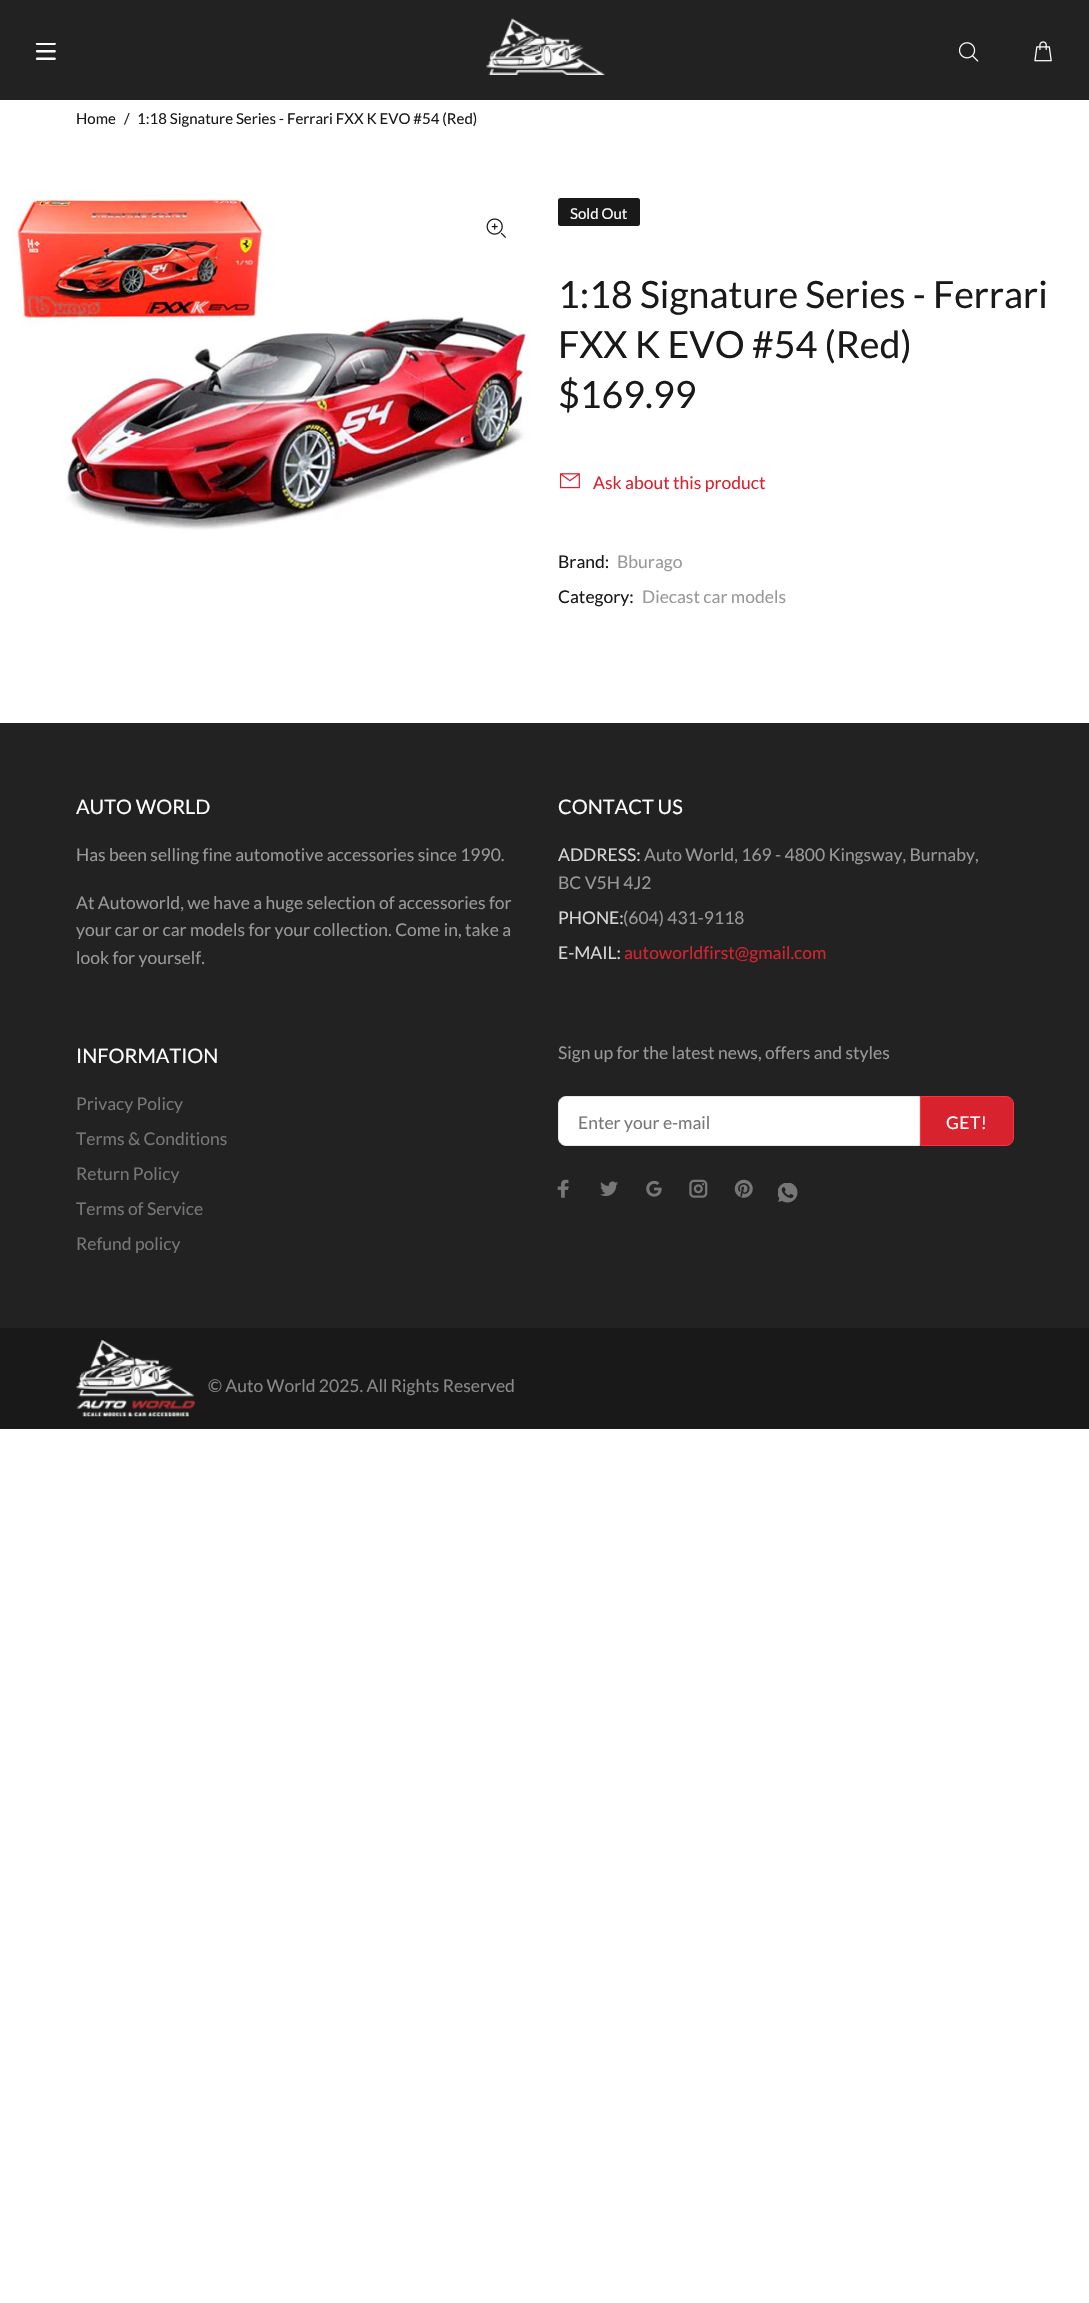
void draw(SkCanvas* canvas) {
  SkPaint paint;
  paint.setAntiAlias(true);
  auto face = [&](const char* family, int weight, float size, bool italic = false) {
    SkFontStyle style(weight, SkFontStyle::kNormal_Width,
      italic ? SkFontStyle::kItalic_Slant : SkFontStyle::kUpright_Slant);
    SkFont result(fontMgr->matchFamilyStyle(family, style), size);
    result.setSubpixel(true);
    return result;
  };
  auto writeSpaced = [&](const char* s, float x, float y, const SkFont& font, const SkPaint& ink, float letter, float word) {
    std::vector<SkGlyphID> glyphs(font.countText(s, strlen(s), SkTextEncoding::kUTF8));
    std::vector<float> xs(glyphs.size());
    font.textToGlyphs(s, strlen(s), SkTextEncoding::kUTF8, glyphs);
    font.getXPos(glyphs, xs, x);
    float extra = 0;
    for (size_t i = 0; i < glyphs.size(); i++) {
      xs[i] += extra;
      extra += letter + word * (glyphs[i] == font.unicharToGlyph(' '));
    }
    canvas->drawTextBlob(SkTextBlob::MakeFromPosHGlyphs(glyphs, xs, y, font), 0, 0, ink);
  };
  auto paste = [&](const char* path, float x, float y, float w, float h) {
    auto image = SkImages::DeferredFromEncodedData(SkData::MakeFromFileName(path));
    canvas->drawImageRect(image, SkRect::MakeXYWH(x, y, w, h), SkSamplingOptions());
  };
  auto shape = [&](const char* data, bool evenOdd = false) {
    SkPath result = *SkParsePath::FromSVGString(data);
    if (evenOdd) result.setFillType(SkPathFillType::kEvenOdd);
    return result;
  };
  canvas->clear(0xffffffff);
  paint.setColor(0xff222222);
  canvas->drawRect(SkRect::MakeXYWH(0, 0, 1089, 100), paint);
  paste("img/1.png", 35, 43, 21, 17);
  paste("img/2.png", 486, 18, 119, 57);
  paste("img/3.png", 958, 42, 21, 20);
  paste("img/4.png", 1034, 41, 18, 21);
  paste("img/5.png", 12, 198, 518, 332);
  paste("img/6.png", 486, 218, 20, 20);
  paint.setColor(0xff191919);
  canvas->drawRoundRect(SkRect::MakeXYWH(558, 198, 82, 28), 2.5f, 2.5f, paint);
  paste("img/7.png", 559, 473, 21, 16);
  paint.setColor(0xff222222);
  canvas->drawRect(SkRect::MakeXYWH(0, 723, 1089, 605), paint);
  paint.setColor(0xffffffff);
  canvas->drawPath(shape("M566 1096.5H919.5V1145.5H566C562 1145.5 558.5 1142 558.5 1138V1104C558.5 1100 562 1096.5 566 1096.5Z"), paint);
  paint.setStroke(true);
  paint.setStrokeWidth(1);
  paint.setColor(0xffe9e7e7);
  canvas->drawPath(shape("M566 1096.5H919.5V1145.5H566C562 1145.5 558.5 1142 558.5 1138V1104C558.5 1100 562 1096.5 566 1096.5Z"), paint);
  paint.setStroke(false);
  paint.setColor(0xffd8232f);
  canvas->drawPath(shape("M920.5 1096.5H1006C1010 1096.5 1013.5 1100 1013.5 1104V1138C1013.5 1142 1010 1145.5 1006 1145.5H920.5Z"), paint);
  paint.setStroke(true);
  paint.setColor(0xffff313f);
  canvas->drawPath(shape("M920.5 1096.5H1006C1010 1096.5 1013.5 1100 1013.5 1104V1138C1013.5 1142 1010 1145.5 1006 1145.5H920.5Z"), paint);
  paste("img/8.png", 557, 1179, 12, 19);
  paste("img/9.png", 600, 1181, 18, 16);
  paste("img/10.png", 646, 1180, 16, 17);
  paste("img/11.png", 689, 1179, 19, 19);
  paste("img/12.png", 734, 1179, 19, 19);
  paste("img/13.png", 778, 1183, 20, 20);
  paint.setStroke(false);
  paint.setColor(0xff191919);
  canvas->drawRect(SkRect::MakeXYWH(0, 1328, 1089, 101), paint);
  paste("img/14.png", 76, 1340, 119, 77);
  auto f0 = face("Lato", 400, 15);
  {
    const struct { const char* s; float x, y; } items[] = {
      {"Home", 76, 124},
      {"/", 124, 124},
      {"1:18 Signature Series - Ferrari FXX K EVO #54 (Red)", 137, 124},
    };
    for (auto [s, x, y] : items) {
      canvas->drawString(s, x, y, f0, paint);
    }
  }
  paint.setColor(0xffffffff);
  canvas->drawString("Sold Out", 570, 219, f0, paint);
  auto f1 = face("Lato", 400, 37.5f);
  paint.setColor(0xff191919);
  {
    const struct { const char* s; float x, y; } items[] = {
      {"1:18 Signature Series - Ferrari", 558, 308},
      {"FXX K EVO #54 (Red)", 558, 358},
      {"$169.99", 558, 408},
    };
    for (auto [s, x, y] : items) {
      canvas->drawString(s, x, y, f1, paint);
    }
  }
  auto f2 = face("Lato", 400, 17.5f);
  paint.setColor(0xffd8232f);
  canvas->drawString("Ask about this product", 593, 489, f2, paint);
  paint.setColor(0xff191919);
  canvas->drawString("Brand:", 558, 568, f2, paint);
  paint.setColor(0xff999999);
  canvas->drawString("Bburago", 617, 568, f2, paint);
  paint.setColor(0xff191919);
  canvas->drawString("Category:", 558, 603, f2, paint);
  paint.setColor(0xff999999);
  canvas->drawString("Diecast car models", 642, 603, f2, paint);
  auto f3 = face("Lato", 400, 20);
  paint.setColor(0xffffffff);
  canvas->drawString("AUTO WORLD", 76, 814, f3, paint);
  paint.setColor(0xff999999);
  {
    const struct { const char* s; float x, y; } items[] = {
      {"Has been selling fine automotive accessories since 1990.", 76, 861},
      {"At Autoworld, we have a huge selection of accessories for", 76, 909},
      {"your car or car models for your collection. Come in, take a", 76, 936},
      {"look for yourself.", 76, 964},
    };
    for (auto [s, x, y] : items) {
      canvas->drawString(s, x, y, f2, paint);
    }
  }
  paint.setColor(0xffffffff);
  canvas->drawString("CONTACT US", 558, 814, f3, paint);
  paint.setColor(0xffd6d6d6);
  canvas->drawString("ADDRESS:", 558, 861, f2, paint);
  paint.setColor(0xff999999);
  canvas->drawString("Auto World, 169 - 4800 Kingsway, Burnaby,", 644, 861, f2, paint);
  canvas->drawString("BC V5H 4J2", 558, 889, f2, paint);
  paint.setColor(0xffd6d6d6);
  canvas->drawString("PHONE:", 558, 924, f2, paint);
  paint.setColor(0xff999999);
  canvas->drawString("(604) 431-9118", 623, 924, f2, paint);
  paint.setColor(0xffd6d6d6);
  canvas->drawString("E-MAIL:", 558, 959, f2, paint);
  paint.setColor(0xffd8232f);
  canvas->drawString("autoworldfirst@gmail.com", 624, 959, f2, paint);
  paint.setColor(0xffffffff);
  canvas->drawString("INFORMATION", 76, 1063, f3, paint);
  paint.setColor(0xff777777);
  {
    const struct { const char* s; float x, y; } items[] = {
      {"Privacy Policy", 76, 1110},
      {"Terms & Conditions", 76, 1145},
      {"Return Policy", 76, 1180},
      {"Terms of Service", 76, 1215},
      {"Refund policy", 76, 1250},
    };
    for (auto [s, x, y] : items) {
      canvas->drawString(s, x, y, f2, paint);
    }
  }
  paint.setColor(0xff999999);
  canvas->drawString("Sign up for the latest news, offers and styles", 558, 1059, f2, paint);
  paint.setColor(0xff777777);
  canvas->drawString("Enter your e-mail", 578, 1129, f2, paint);
  paint.setColor(0xffffffff);
  writeSpaced("GET!", 946, 1129, f2, paint, 0.5f, 0);
  paint.setColor(0xff888888);
  canvas->drawString("© Auto World 2025. All Rights Reserved", 208, 1392, f2, paint);
}
